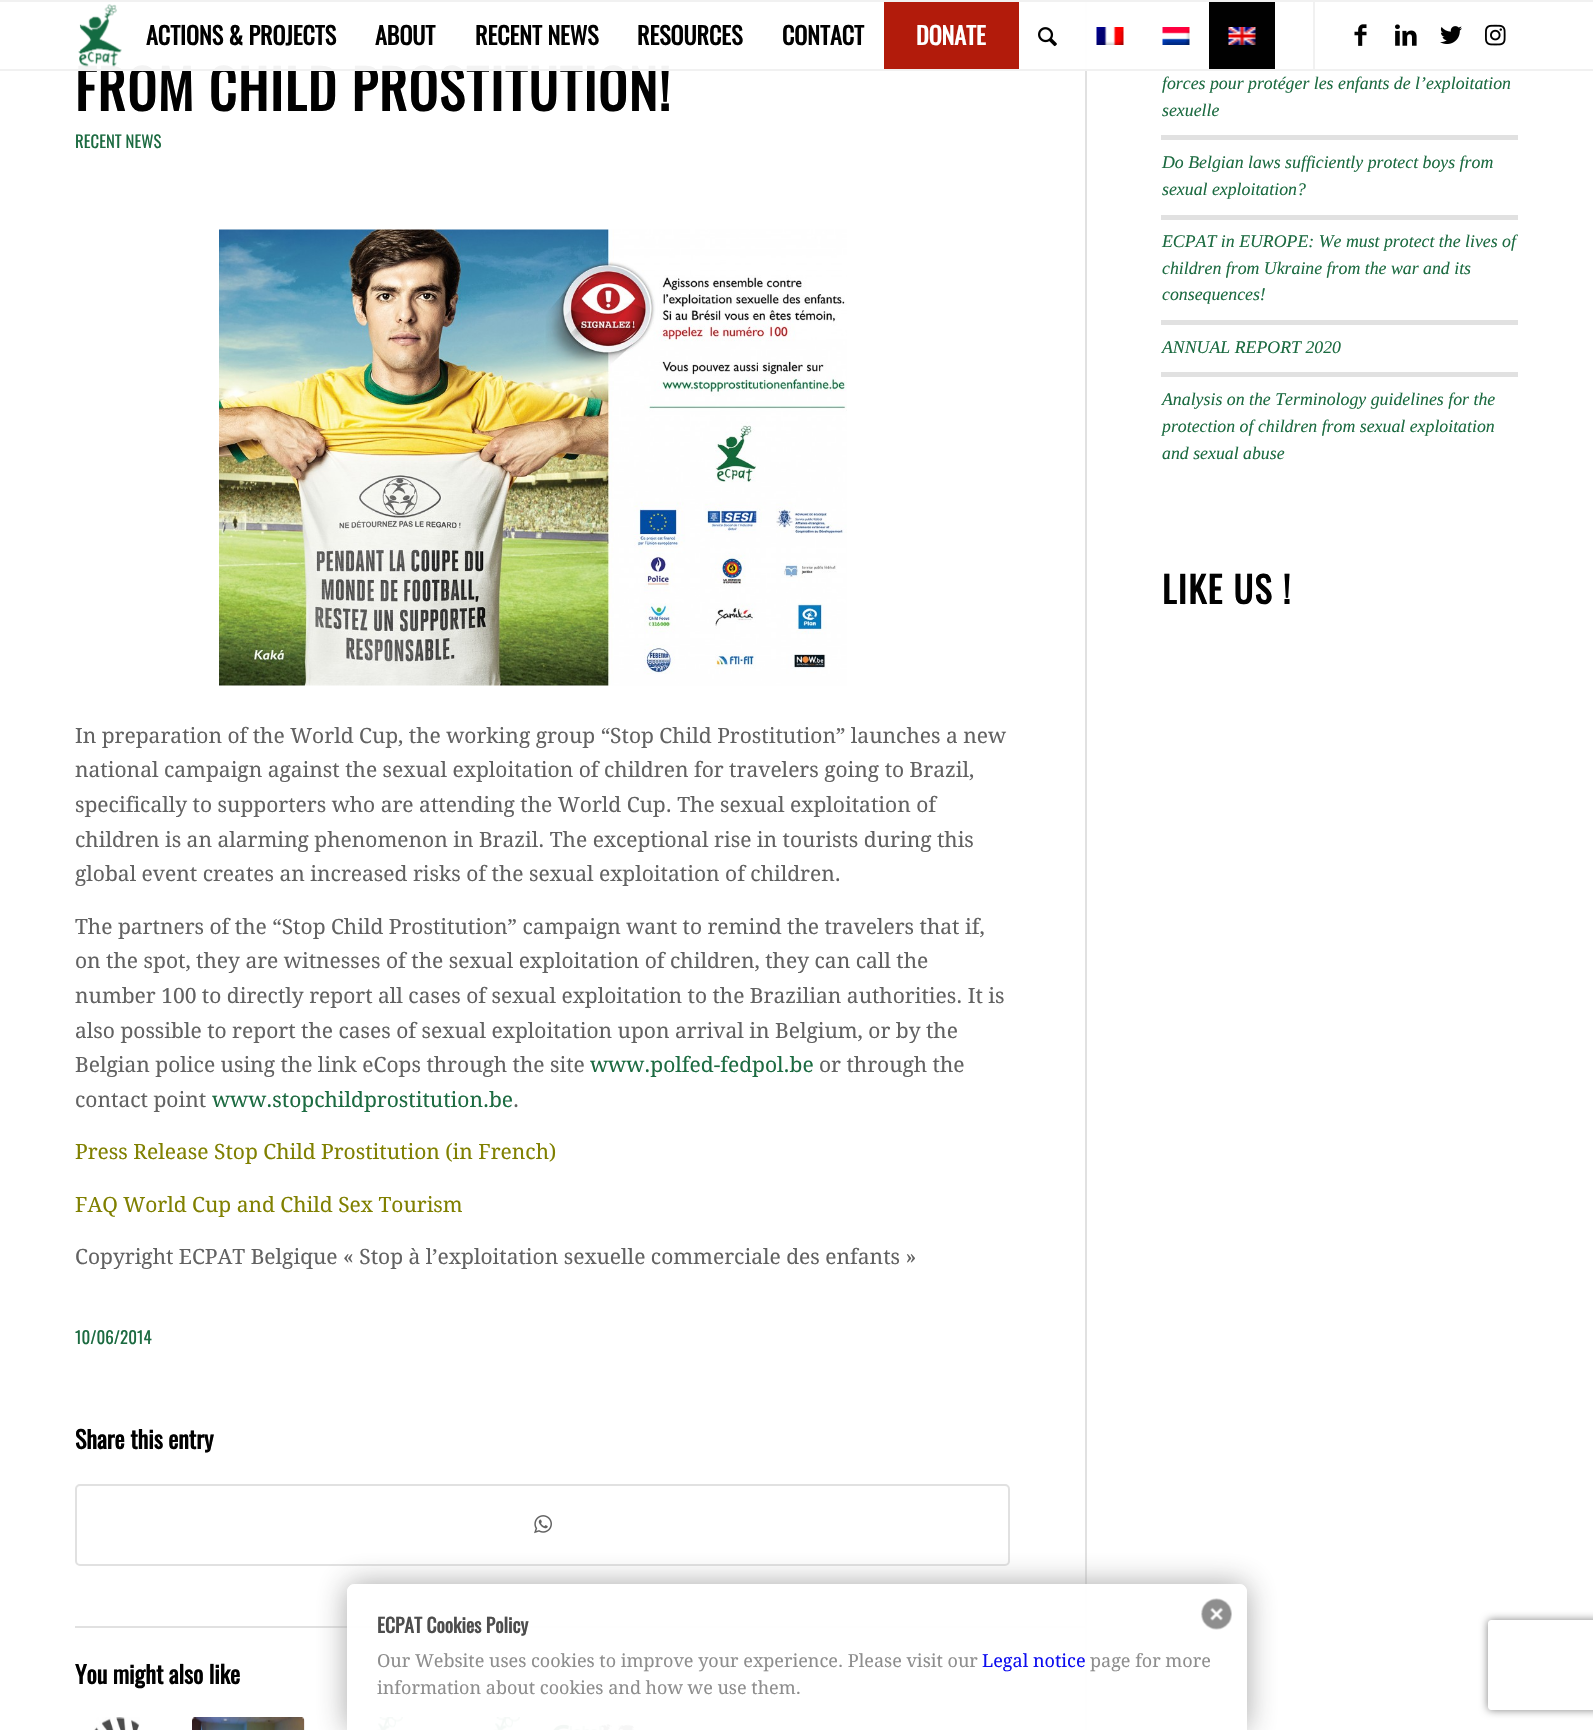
void draw(SkCanvas* canvas) {
  SkPaint paint;
  paint.setAntiAlias(true);
  auto face = [&](const char* family, int weight, float size, bool italic = false) {
    SkFontStyle style(weight, SkFontStyle::kNormal_Width,
      italic ? SkFontStyle::kItalic_Slant : SkFontStyle::kUpright_Slant);
    SkFont result(fontMgr->matchFamilyStyle(family, style), size);
    result.setSubpixel(true);
    return result;
  };
  auto writeSpaced = [&](const char* s, float x, float y, const SkFont& font, const SkPaint& ink, float letter, float word) {
    std::vector<SkGlyphID> glyphs(font.countText(s, strlen(s), SkTextEncoding::kUTF8));
    std::vector<float> xs(glyphs.size());
    font.textToGlyphs(s, strlen(s), SkTextEncoding::kUTF8, glyphs);
    font.getXPos(glyphs, xs, x);
    float extra = 0;
    for (size_t i = 0; i < glyphs.size(); i++) {
      xs[i] += extra;
      extra += letter + word * (glyphs[i] == font.unicharToGlyph(' '));
    }
    canvas->drawTextBlob(SkTextBlob::MakeFromPosHGlyphs(glyphs, xs, y, font), 0, 0, ink);
  };
  auto paste = [&](const char* path, float x, float y, float w, float h) {
    auto image = SkImages::DeferredFromEncodedData(SkData::MakeFromFileName(path));
    canvas->drawImageRect(image, SkRect::MakeXYWH(x, y, w, h), SkSamplingOptions());
  };
  auto shape = [&](const char* data, bool evenOdd = false) {
    SkPath result = *SkParsePath::FromSVGString(data);
    if (evenOdd) result.setFillType(SkPathFillType::kEvenOdd);
    return result;
  };
  canvas->clear(0xffffffff);
  {
    const struct { float x, y, w, h; SkColor color; } items[] = {
      {1085, 0, 2, 1730, 0xffe1e1e1},
      {0, 0, 1593, 2, 0xfff1f1f1},
      {1313, 2, 2, 67, 0xfff1f1f1},
    };
    for (auto [x, y, w, h, color] : items) {
      paint.setColor(color);
      canvas->drawRect(SkRect::MakeXYWH(x, y, w, h), paint);
    }
  }
  paste("img/3.png", 1096, 27, 28, 18);
  paste("img/4.png", 1162, 27, 28, 18);
  paint.setColor(0xff010101);
  canvas->drawRect(SkRect::MakeXYWH(1209, 2, 66, 67), paint);
  paste("img/5.png", 1228, 27, 28, 18);
  paste("img/6.png", 1354, 24, 13, 22);
  paste("img/7.png", 1395, 24, 22, 22);
  paste("img/8.png", 1440, 26, 22, 18);
  paste("img/9.png", 1485, 24, 21, 22);
  paste("img/10.png", 219, 229, 628, 457);
  paint.setStroke(true);
  paint.setStrokeWidth(2);
  paint.setColor(0xffe1e1e1);
  canvas->drawRoundRect(SkRect::MakeXYWH(76, 1485, 933, 80), 4, 4, paint);
  paste("img/11.png", 534, 1515, 18, 19);
  paint.setStroke(false);
  canvas->drawRect(SkRect::MakeXYWH(75, 1626, 1010, 2), paint);
  paste("img/12.png", 94, 1717, 46, 13);
  paste("img/13.png", 192, 1717, 113, 13);
  paste("img/14.png", 376, 1717, 28, 13);
  paste("img/14.png", 493, 1717, 28, 13);
  paste("img/15.png", 553, 1723, 86, 7);
  {
    const struct { float x, y, w, h; SkColor color; } items[] = {
      {1161, 135, 357, 5, 0xffe1e1e1},
      {1161, 215, 357, 5, 0xffe1e1e1},
      {1161, 320, 357, 5, 0xffe1e1e1},
      {1161, 372, 357, 5, 0xffe1e1e1},
    };
    for (auto [x, y, w, h, color] : items) {
      paint.setColor(color);
      canvas->drawRect(SkRect::MakeXYWH(x, y, w, h), paint);
    }
  }
  canvas->save();
  canvas->clipPath(shape("M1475 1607H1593V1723H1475ZM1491 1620H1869C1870.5 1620 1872 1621.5 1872 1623V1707C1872 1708.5 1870.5 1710 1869 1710H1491C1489.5 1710 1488 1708.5 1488 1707V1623C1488 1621.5 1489.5 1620 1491 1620Z", true), true);
  paint.setColor(0xff808080);
  paint.setMaskFilter(SkMaskFilter::MakeBlur(kNormal_SkBlurStyle, 4));
  canvas->drawRoundRect(SkRect::MakeXYWH(1488, 1620, 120, 90), 3, 3, paint);
  paint.setMaskFilter(nullptr);
  canvas->restore();
  canvas->save();
  canvas->clipPath(shape("M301 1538H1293V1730H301ZM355 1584H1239C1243.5 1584 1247 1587.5 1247 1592V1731H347V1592C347 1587.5 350.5 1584 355 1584Z", true), true);
  paint.setColor(0xf2a1a1a1);
  paint.setMaskFilter(SkMaskFilter::MakeBlur(kNormal_SkBlurStyle, 15));
  canvas->drawRoundRect(SkRect::MakeXYWH(347, 1584, 900, 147), 8, 8, paint);
  paint.setMaskFilter(nullptr);
  canvas->restore();
  paint.setColor(0xf2ffffff);
  canvas->drawPath(shape("M355 1584H1239C1243.5 1584 1247 1587.5 1247 1592V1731H347V1592C347 1587.5 350.5 1584 355 1584Z"), paint);
  paste("img/16.png", 1201, 1598, 31, 32);
  auto f0 = face("Oswald", 700, 54);
  paint.setColor(0xff010101);
  writeSpaced("FROM CHILD PROSTITUTION!", 75, 111, f0, paint, 1.5f, 0);
  paint.setColor(0xf2ffffff);
  canvas->drawRect(SkRect::MakeXYWH(78, 2, 1009, 67), paint);
  paste("img/2.png", 1038, 27, 19, 20);
  paint.setColor(0xffb21b0b);
  canvas->drawRect(SkRect::MakeXYWH(884, 2, 135, 67), paint);
  auto f1 = face("Oswald", 700, 24);
  paint.setColor(0xffffffff);
  canvas->drawString("DONATE", 916, 45, f1, paint);
  paint.setColor(0xff010101);
  {
    const struct { const char* s; float x, y; } items[] = {
      {"CONTACT", 782, 45},
      {"RESOURCES", 637, 45},
      {"RECENT NEWS", 475, 45},
      {"ABOUT", 375, 45},
      {"ACTIONS & PROJECTS", 146, 45},
    };
    for (auto [s, x, y] : items) {
      canvas->drawString(s, x, y, f1, paint);
    }
  }
  paste("img/1.png", 78, 4, 44, 63);
  paint.setColor(0xfff1f1f1);
  canvas->drawRect(SkRect::MakeXYWH(0, 69, 1593, 2), paint);
  auto f2 = face("Oswald", 400, 16.75f);
  paint.setColor(0xff1c6b41);
  canvas->drawString("RECENT NEWS", 75, 148, f2, paint);
  auto f3 = face("Droid Serif", 400, 21);
  paint.setColor(0xff626262);
  {
    const struct { const char* s; float x, y; } items[] = {
      {"In preparation of the World Cup, the working group “Stop Child Prostitution” launches a new", 75, 743},
      {"national campaign against the sexual exploitation of children for travelers going to Brazil,", 75, 777},
      {"specifically to supporters who are attending the World Cup. The sexual exploitation of", 75, 812},
      {"children is an alarming phenomenon in Brazil. The exceptional rise in tourists during this", 75, 847},
      {"global event creates an increased risks of the sexual exploitation of children.", 75, 881},
      {"The partners of the “Stop Child Prostitution” campaign want to remind the travelers that if,", 75, 934},
      {"on the spot, they are witnesses of the sexual exploitation of children, they can call the", 75, 968},
      {"number 100 to directly report all cases of sexual exploitation to the Brazilian authorities. It is", 75, 1003},
      {"also possible to report the cases of sexual exploitation upon arrival in Belgium, or by the", 75, 1038},
      {"Belgian police using the link eCops through the site", 75, 1072},
    };
    for (auto [s, x, y] : items) {
      canvas->drawString(s, x, y, f3, paint);
    }
  }
  paint.setColor(0xff1c6b41);
  canvas->drawString("www.polfed-fedpol.be", 590, 1072, f3, paint);
  paint.setColor(0xff626262);
  canvas->drawString("or through the", 819, 1072, f3, paint);
  canvas->drawString("contact point", 75, 1107, f3, paint);
  paint.setColor(0xff1c6b41);
  canvas->drawString("www.stopchildprostitution.be", 212, 1107, f3, paint);
  paint.setColor(0xff626262);
  canvas->drawString(".", 513, 1107, f3, paint);
  paint.setColor(0xff808000);
  canvas->drawString("Press Release Stop Child Prostitution (in French)", 75, 1159, f3, paint);
  canvas->drawString("FAQ World Cup and Child Sex Tourism", 75, 1212, f3, paint);
  paint.setColor(0xff626262);
  canvas->drawString("Copyright ECPAT Belgique « Stop à l’exploitation sexuelle commerciale des enfants »", 75, 1264, f3, paint);
  auto f4 = face("Oswald", 400, 17);
  paint.setColor(0xff1c6b41);
  canvas->drawString("10/06/2014", 75, 1344, f4, paint);
  paint.setColor(0xff010101);
  canvas->drawString("Share this entry", 75, 1449, f1, paint);
  canvas->drawString("You might also like", 75, 1684, f1, paint);
  auto f5 = face("Liberation Serif", 400, 17.8f, true);
  paint.setColor(0xff1c6b41);
  {
    const struct { const char* s; float x, y; } items[] = {
      {"forces pour protéger les enfants de l’exploitation", 1162, 89},
      {"sexuelle", 1162, 116},
      {"Do Belgian laws sufficiently protect boys from", 1162, 168},
      {"sexual exploitation?", 1162, 195},
    };
    for (auto [s, x, y] : items) {
      canvas->drawString(s, x, y, f5, paint);
    }
  }
  canvas->save();
  canvas->clipRect(SkRect::MakeXYWH(1086, 0, 432, 774));
  canvas->drawString("ECPAT in EUROPE: We must protect the lives of", 1162, 247, f5, paint);
  canvas->restore();
  {
    const struct { const char* s; float x, y; } items[] = {
      {"children from Ukraine from the war and its", 1162, 274},
      {"consequences!", 1162, 300},
      {"ANNUAL REPORT 2020", 1162, 353},
      {"Analysis on the Terminology guidelines for the", 1162, 405},
      {"protection of children from sexual exploitation", 1162, 432},
      {"and sexual abuse", 1162, 459},
    };
    for (auto [s, x, y] : items) {
      canvas->drawString(s, x, y, f5, paint);
    }
  }
  auto f6 = face("Oswald", 700, 36);
  paint.setColor(0xff010101);
  writeSpaced("LIKE US !", 1162, 604, f6, paint, 1.5f, 0);
  auto f7 = face("Oswald", 700, 19.5f);
  paint.setColor(0xff4d4d4d);
  canvas->drawString("ECPAT Cookies Policy", 377, 1633, f7, paint);
  auto f8 = face("Droid Serif", 400, 18);
  paint.setColor(0xff8e8e8e);
  canvas->drawString("Our Website uses cookies to improve your experience. Please visit our", 377, 1667, f8, paint);
  paint.setColor(0xff0d0def);
  canvas->drawString("Legal notice", 982, 1667, f8, paint);
  paint.setColor(0xff8e8e8e);
  canvas->drawString("page for more", 1090, 1667, f8, paint);
  canvas->drawString("information about cookies and how we use them.", 377, 1694, f8, paint);
}
